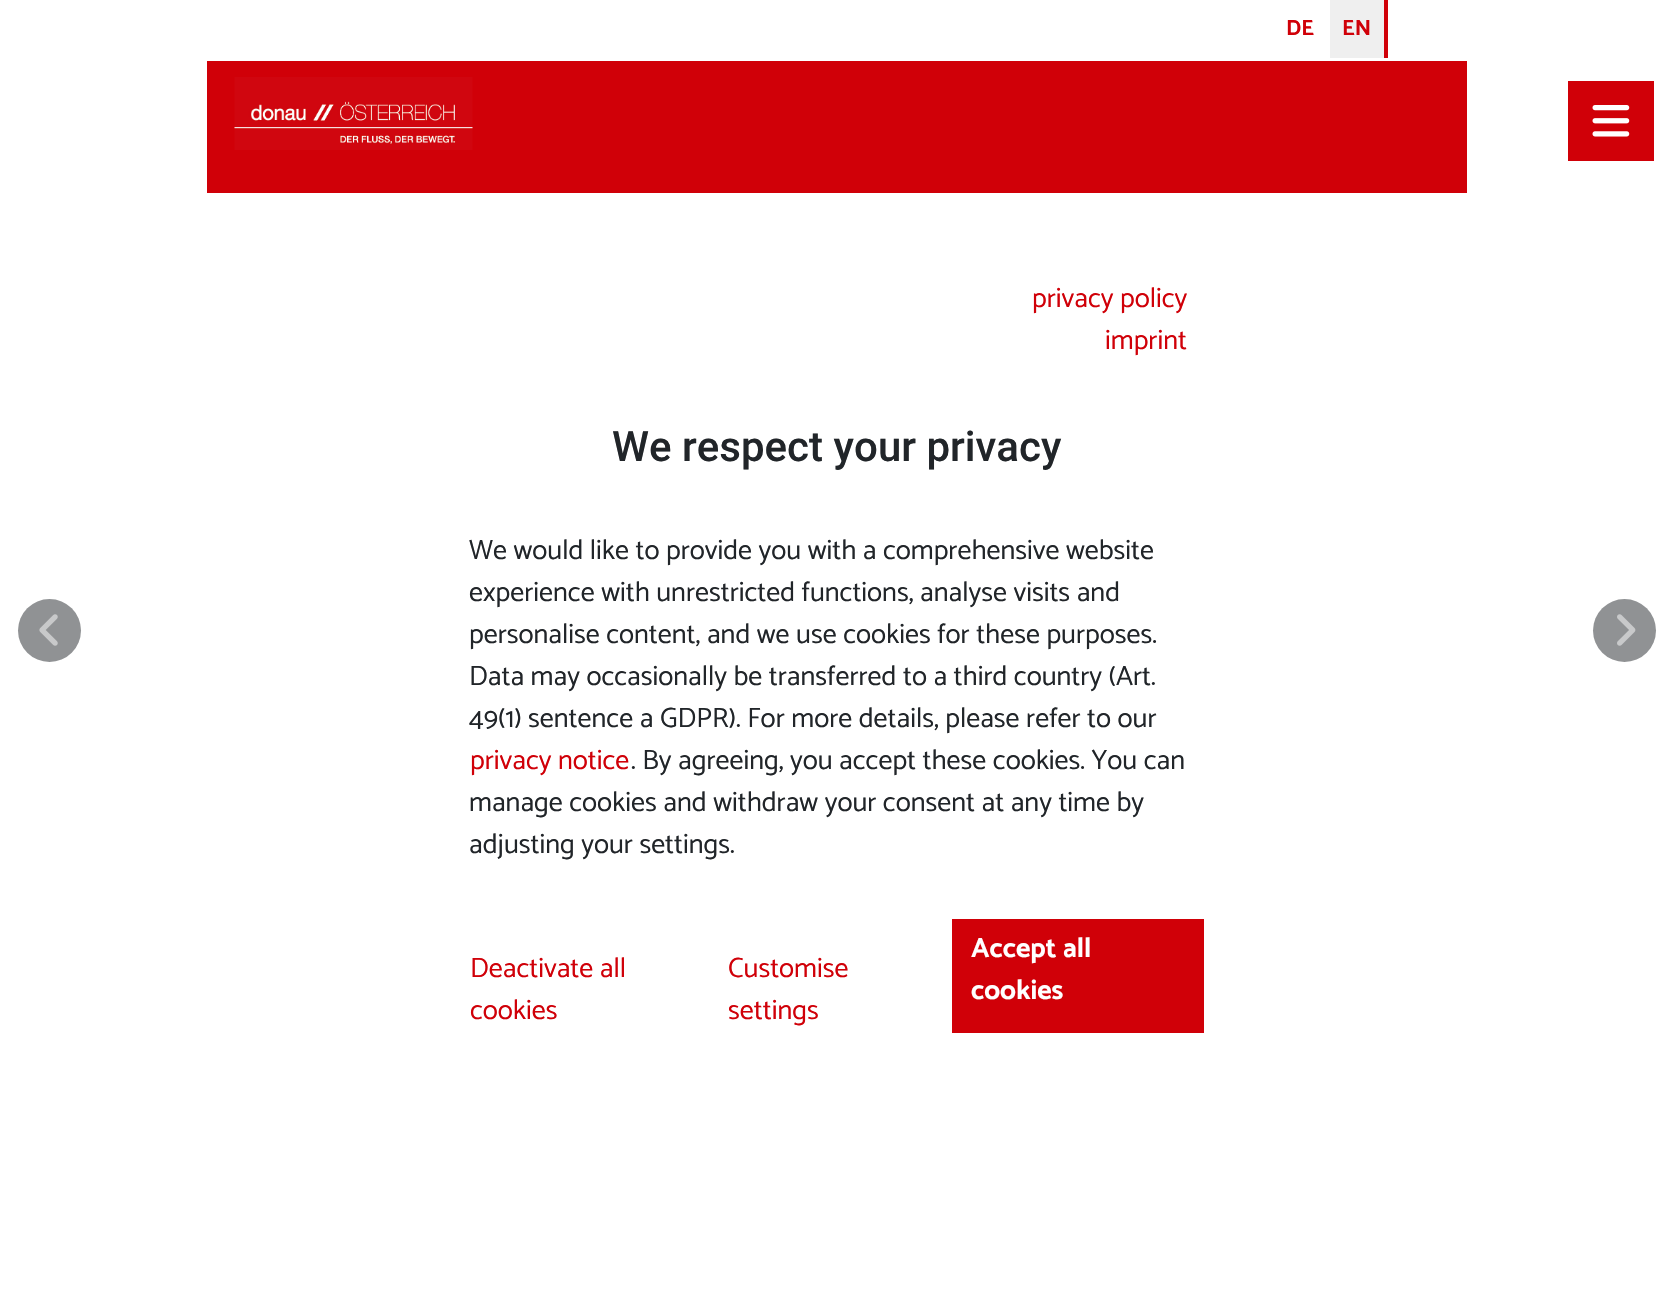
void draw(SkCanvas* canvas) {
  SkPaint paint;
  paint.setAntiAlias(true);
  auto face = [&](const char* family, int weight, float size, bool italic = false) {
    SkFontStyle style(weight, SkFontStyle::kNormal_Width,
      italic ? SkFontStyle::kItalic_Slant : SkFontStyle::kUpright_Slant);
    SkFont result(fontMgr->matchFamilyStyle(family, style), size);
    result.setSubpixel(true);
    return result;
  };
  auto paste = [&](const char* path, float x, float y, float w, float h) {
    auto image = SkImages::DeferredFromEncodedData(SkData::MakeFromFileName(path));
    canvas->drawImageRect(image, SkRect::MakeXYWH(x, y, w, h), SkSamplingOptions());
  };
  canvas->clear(0xffffffff);
  {
    const struct { float x, y, w, h; SkColor color; } items[] = {
      {1384, 0, 4, 58, 0xffd00008},
      {1330, 0, 54, 58, 0xffefefef},
      {207, 61, 1260, 132, 0xffd00008},
    };
    for (auto [x, y, w, h, color] : items) {
      paint.setColor(color);
      canvas->drawRect(SkRect::MakeXYWH(x, y, w, h), paint);
    }
  }
  paste("img/1.png", 234, 77, 239, 73);
  canvas->drawRect(SkRect::MakeXYWH(1568, 81, 86, 80), paint);
  paste("img/2.png", 1592, 105, 38, 32);
  paint.setColor(0xff909294);
  canvas->drawCircle(49.5f, 630.5f, 31.5f, paint);
  paste("img/3.png", 39, 614, 19, 32);
  canvas->drawCircle(1624.5f, 630.5f, 31.5f, paint);
  paste("img/4.png", 1617, 614, 19, 32);
  paint.setColor(0xffd00008);
  canvas->drawRect(SkRect::MakeXYWH(952, 919, 252, 114), paint);
  auto f0 = face("Catamaran", 700, 22);
  canvas->drawString("DE", 1286, 35, f0, paint);
  canvas->drawString("EN", 1342, 35, f0, paint);
  auto f1 = face("Catamaran", 400, 28);
  canvas->drawString("privacy policy", 1032, 307, f1, paint);
  canvas->drawString("imprint", 1105, 349, f1, paint);
  auto f2 = face("Roboto", 500, 42);
  paint.setColor(0xff212529);
  canvas->drawString("We respect your privacy", 612, 461, f2, paint);
  {
    const struct { const char* s; float x, y; } items[] = {
      {"We would like to provide you with a comprehensive website", 469, 559},
      {"experience with unrestricted functions, analyse visits and", 469, 601},
      {"personalise content, and we use cookies for these purposes.", 469, 643},
      {"Data may occasionally be transferred to a third country (Art.", 469, 685},
      {"49(1) sentence a GDPR). For more details, please refer to our", 469, 727},
    };
    for (auto [s, x, y] : items) {
      canvas->drawString(s, x, y, f1, paint);
    }
  }
  paint.setColor(0xffd00008);
  canvas->drawString("privacy notice", 470, 769, f1, paint);
  paint.setColor(0xff212529);
  {
    const struct { const char* s; float x, y; } items[] = {
      {". By agreeing, you accept these cookies. You can", 631, 769},
      {"manage cookies and withdraw your consent at any time by", 469, 811},
      {"adjusting your settings.", 469, 853},
    };
    for (auto [s, x, y] : items) {
      canvas->drawString(s, x, y, f1, paint);
    }
  }
  paint.setColor(0xffd00008);
  {
    const struct { const char* s; float x, y; } items[] = {
      {"Deactivate all", 470, 977},
      {"cookies", 470, 1019},
      {"Customise", 728, 977},
      {"settings", 728, 1019},
    };
    for (auto [s, x, y] : items) {
      canvas->drawString(s, x, y, f1, paint);
    }
  }
  auto f3 = face("Catamaran", 700, 28);
  paint.setColor(0xffffffff);
  canvas->drawString("Accept all", 971, 957, f3, paint);
  canvas->drawString("cookies", 971, 999, f3, paint);
}
